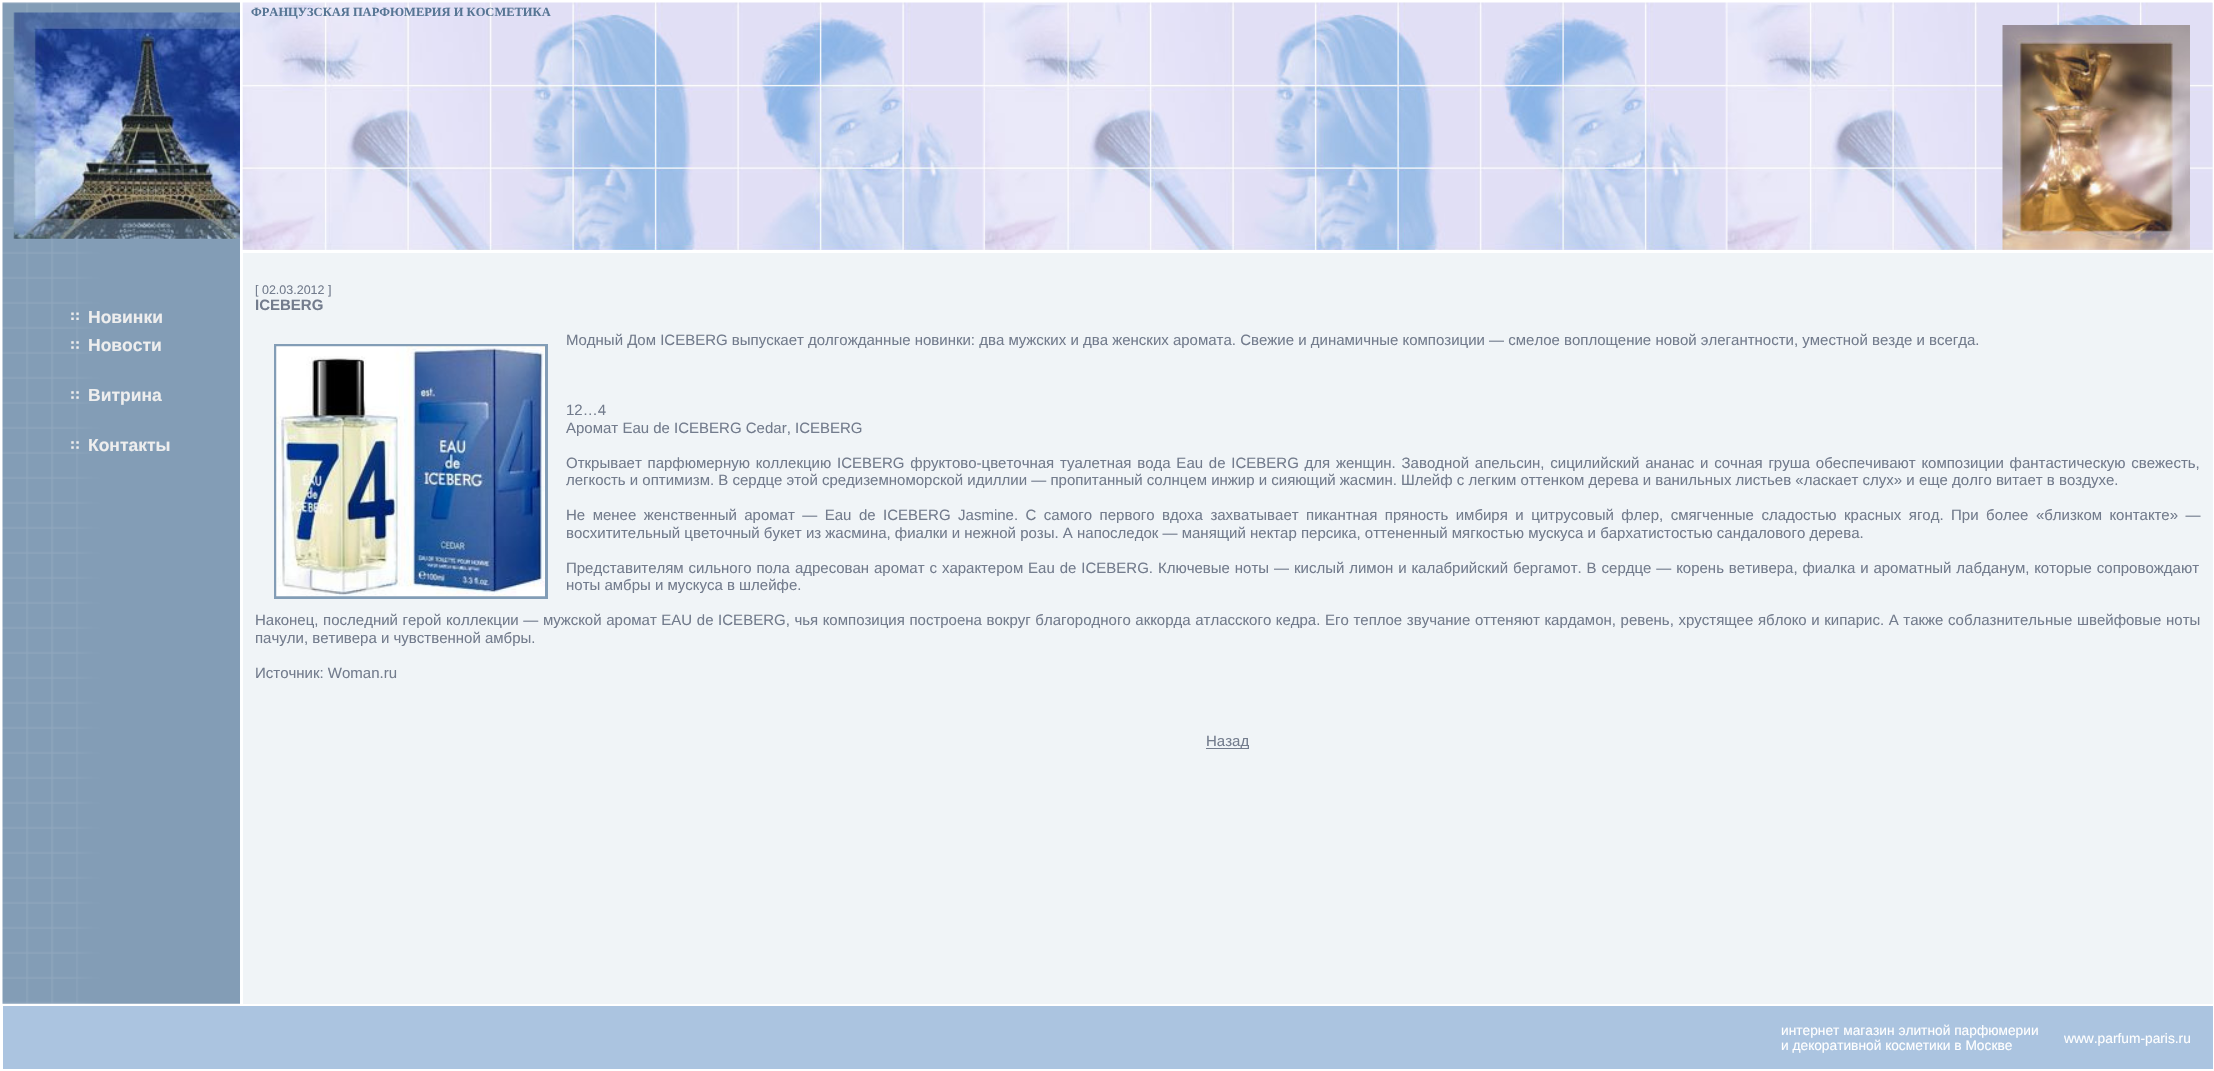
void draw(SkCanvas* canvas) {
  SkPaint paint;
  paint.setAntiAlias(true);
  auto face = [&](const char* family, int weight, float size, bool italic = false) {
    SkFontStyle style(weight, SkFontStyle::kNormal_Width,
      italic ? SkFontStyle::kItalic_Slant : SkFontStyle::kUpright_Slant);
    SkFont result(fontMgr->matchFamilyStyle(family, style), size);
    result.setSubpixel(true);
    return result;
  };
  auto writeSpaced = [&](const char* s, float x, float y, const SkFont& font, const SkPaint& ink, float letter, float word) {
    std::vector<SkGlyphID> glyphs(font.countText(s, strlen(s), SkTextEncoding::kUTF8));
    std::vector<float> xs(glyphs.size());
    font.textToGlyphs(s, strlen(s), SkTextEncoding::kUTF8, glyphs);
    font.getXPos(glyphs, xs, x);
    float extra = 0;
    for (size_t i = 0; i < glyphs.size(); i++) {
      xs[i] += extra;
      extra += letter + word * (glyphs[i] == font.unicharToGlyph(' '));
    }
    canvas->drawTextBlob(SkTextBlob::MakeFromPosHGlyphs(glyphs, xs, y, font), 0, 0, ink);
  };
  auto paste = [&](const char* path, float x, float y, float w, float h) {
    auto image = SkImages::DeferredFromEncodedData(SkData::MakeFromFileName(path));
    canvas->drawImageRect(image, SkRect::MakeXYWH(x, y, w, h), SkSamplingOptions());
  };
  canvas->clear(0xffffffff);
  paste("img/1.png", 2, 2, 238, 1002);
  paste("img/2.png", 13, 12, 227, 227);
  paste("img/3.png", 71, 312, 8, 8);
  paste("img/4.png", 71, 341, 8, 8);
  paste("img/4.png", 71, 391, 8, 8);
  paste("img/4.png", 71, 441, 8, 8);
  paint.setColor(0xfff0f4f7);
  canvas->drawRect(SkRect::MakeXYWH(243, 3, 1970, 1001), paint);
  paste("img/5.png", 242, 2, 1971, 248);
  paste("img/6.png", 2002, 25, 188, 225);
  paint.setColor(0xffffffff);
  canvas->drawRect(SkRect::MakeXYWH(243, 250, 1970, 3), paint);
  paint.setStroke(true);
  paint.setStrokeWidth(3);
  paint.setColor(0xff839db6);
  canvas->drawRect(SkRect::MakeXYWH(275.5f, 345.5f, 271, 252), paint);
  paste("img/7.png", 276, 346, 269, 251);
  paint.setStroke(false);
  paint.setColor(0xff737c8d);
  canvas->drawRect(SkRect::MakeXYWH(1206, 748, 43, 1), paint);
  paint.setColor(0xffabc4e0);
  canvas->drawRect(SkRect::MakeXYWH(3, 1006, 2210, 63), paint);
  auto f0 = face("Liberation Sans", 700, 17.5f);
  paint.setColor(0xffeeeeee);
  {
    const struct { const char* s; float x, y; } items[] = {
      {"Новинки", 88, 323},
      {"Новости", 88, 351},
      {"Витрина", 88, 401},
      {"Контакты", 88, 451},
    };
    for (auto [s, x, y] : items) {
      canvas->drawString(s, x, y, f0, paint);
    }
  }
  auto f1 = face("Liberation Serif", 700, 12.5f);
  paint.setColor(0xff567594);
  canvas->drawString("ФРАНЦУЗСКАЯ ПАРФЮМЕРИЯ И КОСМЕТИКА", 251, 16, f1, paint);
  auto f2 = face("Liberation Sans", 400, 12.5f);
  paint.setColor(0xff737c8d);
  canvas->drawString("[ 02.03.2012 ]", 255, 294, f2, paint);
  auto f3 = face("Liberation Sans", 700, 15);
  canvas->drawString("ICEBERG", 255, 310, f3, paint);
  auto f4 = face("Liberation Sans", 400, 15);
  {
    const struct { const char* s; float x, y; } items[] = {
      {"Модный Дом ICEBERG выпускает долгожданные новинки: два мужских и два женских аромата. Свежие и динамичные композиции — смелое воплощение новой элегантности, уместной везде и всегда.", 566, 345},
      {"12…4", 566, 415},
      {"Аромат Eau de ICEBERG Cedar, ICEBERG", 566, 433},
    };
    for (auto [s, x, y] : items) {
      canvas->drawString(s, x, y, f4, paint);
    }
  }
  writeSpaced("Открывает парфюмерную коллекцию ICEBERG фруктово-цветочная туалетная вода Eau de ICEBERG для женщин. Заводной апельсин, сицилийский ананас и сочная груша обеспечивают композиции фантастическую свежесть,", 566, 468, f4, paint, 0, 1.6f);
  canvas->drawString("легкость и оптимизм. В сердце этой средиземноморской идиллии — пропитанный солнцем инжир и сияющий жасмин. Шлейф с легким оттенком дерева и ванильных листьев «ласкает слух» и еще долго витает в воздухе.", 566, 485, f4, paint);
  writeSpaced("Не менее женственный аромат — Eau de ICEBERG Jasmine. С самого первого вдоха захватывает пикантная пряность имбиря и цитрусовый флер, смягченные сладостью красных ягод. При более «близком контакте» —", 566, 520, f4, paint, 0, 3.3f);
  canvas->drawString("восхитительный цветочный букет из жасмина, фиалки и нежной розы. А напоследок — манящий нектар персика, оттененный мягкостью мускуса и бархатистостью сандалового дерева.", 566, 538, f4, paint);
  writeSpaced("Представителям сильного пола адресован аромат с характером Eau de ICEBERG. Ключевые ноты — кислый лимон и калабрийский бергамот. В сердце — корень ветивера, фиалка и ароматный лабданум, которые сопровождают", 566, 573, f4, paint, 0, 0.75f);
  canvas->drawString("ноты амбры и мускуса в шлейфе.", 566, 590, f4, paint);
  writeSpaced("Наконец, последний герой коллекции — мужской аромат EAU de ICEBERG, чья композиция построена вокруг благородного аккорда атласского кедра. Его теплое звучание оттеняют кардамон, ревень, хрустящее яблоко и кипарис. А также соблазнительные швейфовые ноты", 255, 625, f4, paint, 0, 0.45f);
  {
    const struct { const char* s; float x, y; } items[] = {
      {"пачули, ветивера и чувственной амбры.", 255, 643},
      {"Источник: Woman.ru", 255, 678},
      {"Назад", 1206, 746},
    };
    for (auto [s, x, y] : items) {
      canvas->drawString(s, x, y, f4, paint);
    }
  }
  auto f5 = face("Liberation Sans", 400, 13.75f);
  paint.setColor(0xffffffff);
  {
    const struct { const char* s; float x, y; } items[] = {
      {"интернет магазин элитной парфюмерии", 1781, 1035},
      {"и декоративной косметики в Москве", 1781, 1050},
      {"www.parfum-paris.ru", 2064, 1043},
    };
    for (auto [s, x, y] : items) {
      canvas->drawString(s, x, y, f5, paint);
    }
  }
}
